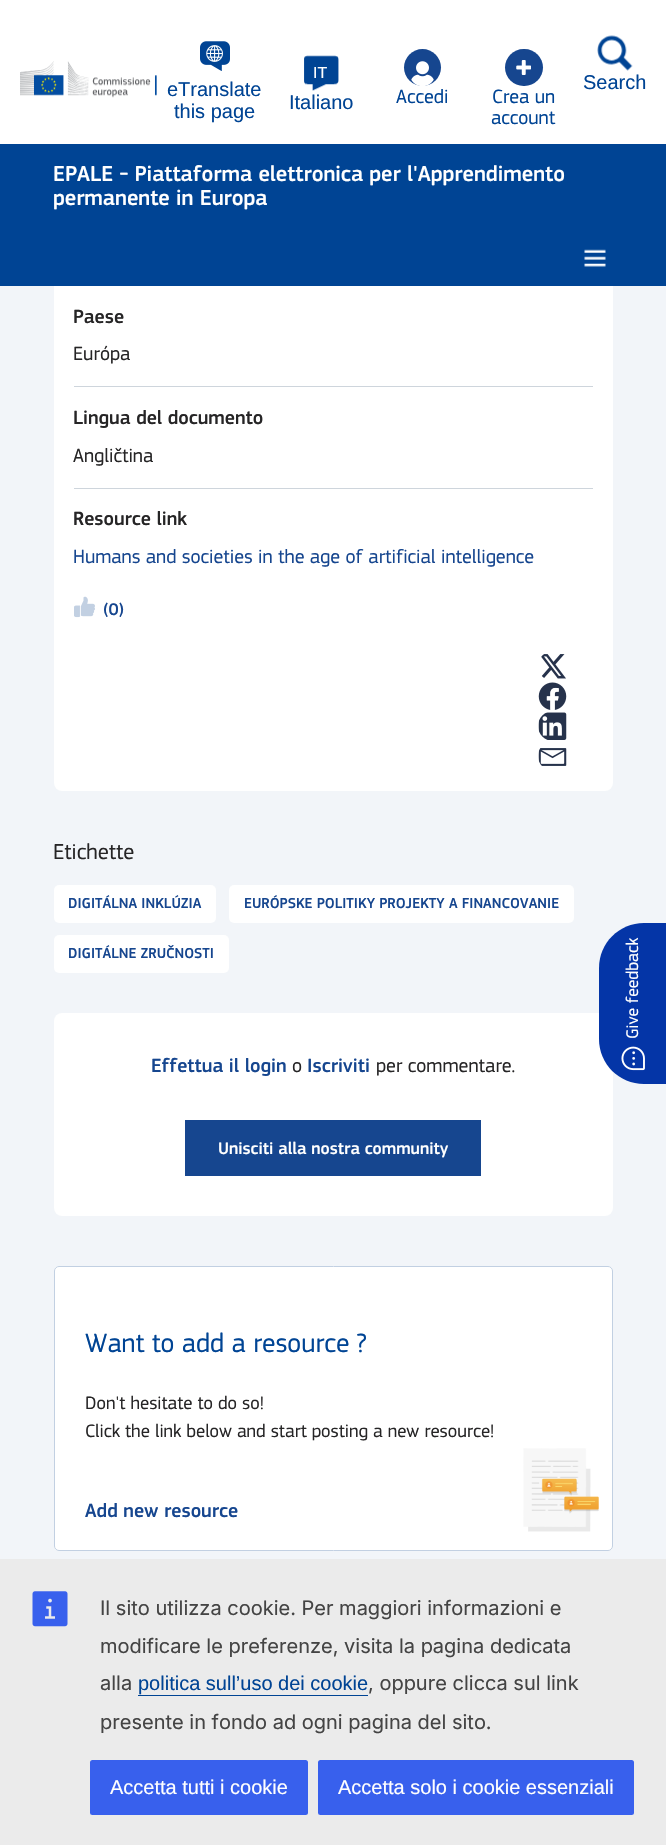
void draw(SkCanvas* canvas) {
  SkPaint paint;
  paint.setAntiAlias(true);
  auto face = [&](const char* family, int weight, float size, bool italic = false) {
    SkFontStyle style(weight, SkFontStyle::kNormal_Width,
      italic ? SkFontStyle::kItalic_Slant : SkFontStyle::kUpright_Slant);
    SkFont result(fontMgr->matchFamilyStyle(family, style), size);
    result.setSubpixel(true);
    return result;
  };
  auto paste = [&](const char* path, float x, float y, float w, float h) {
    auto image = SkImages::DeferredFromEncodedData(SkData::MakeFromFileName(path));
    canvas->drawImageRect(image, SkRect::MakeXYWH(x, y, w, h), SkSamplingOptions());
  };
  auto shape = [&](const char* data, bool evenOdd = false) {
    SkPath result = *SkParsePath::FromSVGString(data);
    if (evenOdd) result.setFillType(SkPathFillType::kEvenOdd);
    return result;
  };
  canvas->clear(0xfff2f5f9);
  paint.setColor(0xffffffff);
  canvas->drawRoundRect(SkRect::MakeXYWH(54, -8, 559, 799), 8, 8, paint);
  canvas->drawRect(SkRect::MakeXYWH(0, 0, 666, 144), paint);
  paste("img/1.png", 20, 61, 137, 37);
  paste("img/2.png", 200, 41, 30, 30);
  paste("img/3.png", 304, 55, 35, 36);
  paint.setColor(0xff16468f);
  canvas->drawCircle(422.5f, 67.5f, 18.5f, paint);
  paste("img/4.png", 411, 61, 23, 25);
  canvas->drawRoundRect(SkRect::MakeXYWH(505, 49, 38, 37), 18.5f, 18.5f, paint);
  paste("img/5.png", 516, 60, 15, 15);
  paste("img/6.png", 597, 35, 36, 36);
  paint.setColor(0xffffffff);
  canvas->drawRoundRect(SkRect::MakeXYWH(54, 1013, 559, 203), 8, 8, paint);
  paint.setColor(0xff0435a7);
  canvas->drawPath(shape("M644 923H666V1084H644C619 1084 599 1064 599 1039V968C599 943 619 923 644 923Z"), paint);
  paste("img/7.png", 621, 1046, 24, 25);
  paint.setColor(0xff004494);
  canvas->drawRect(SkRect::MakeXYWH(0, 144, 666, 142), paint);
  paste("img/8.png", 584, 249, 22, 18);
  paint.setColor(0xffced5dc);
  canvas->drawRect(SkRect::MakeXYWH(74, 386, 519, 1), paint);
  canvas->drawRect(SkRect::MakeXYWH(74, 488, 519, 1), paint);
  paste("img/9.png", 74, 596, 21, 22);
  paste("img/10.png", 541, 654, 25, 25);
  paste("img/11.png", 538, 682, 29, 28);
  paste("img/12.png", 538, 712, 29, 28);
  paste("img/13.png", 538, 748, 29, 18);
  paint.setColor(0xffffffff);
  canvas->drawRoundRect(SkRect::MakeXYWH(54, 885, 162, 38), 5, 5, paint);
  canvas->drawRoundRect(SkRect::MakeXYWH(229, 885, 345, 38), 5, 5, paint);
  canvas->drawRoundRect(SkRect::MakeXYWH(54, 935, 175, 38), 5, 5, paint);
  paint.setColor(0xff16468f);
  canvas->drawRect(SkRect::MakeXYWH(185, 1120, 296, 56), paint);
  paint.setColor(0xffffffff);
  canvas->drawRoundRect(SkRect::MakeXYWH(54, 1266, 559, 285), 5, 5, paint);
  paste("img/14.png", 523, 1448, 76, 84);
  paint.setStroke(true);
  paint.setStrokeWidth(1);
  paint.setColor(0xffc2d0e2);
  canvas->drawRoundRect(SkRect::MakeXYWH(54.5f, 1266.5f, 558, 284), 4.5f, 4.5f, paint);
  paint.setStroke(false);
  paint.setColor(0xffebebeb);
  canvas->drawRect(SkRect::MakeXYWH(0, 1559, 666, 286), paint);
  paste("img/15.png", 32, 1591, 36, 36);
  paint.setColor(0xff004494);
  canvas->drawRect(SkRect::MakeXYWH(138, 1695, 230, 1), paint);
  paint.setColor(0xff3860ed);
  canvas->drawRoundRect(SkRect::MakeXYWH(90, 1760, 218, 55), 2.5f, 2.5f, paint);
  canvas->drawRoundRect(SkRect::MakeXYWH(318, 1760, 316, 55), 2.5f, 2.5f, paint);
  auto f0 = face("Liberation Sans", 400, 20);
  paint.setColor(0xff004494);
  canvas->drawString("eTranslate", 167, 96, f0, paint);
  canvas->drawString("this page", 174, 118, f0, paint);
  auto f1 = face("Liberation Sans", 400, 16);
  paint.setColor(0xffffffff);
  canvas->drawString("IT", 313, 78, f1, paint);
  paint.setColor(0xff004494);
  canvas->drawString("Italiano", 289, 109, f0, paint);
  auto f2 = face("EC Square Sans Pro", 400, 20);
  {
    const struct { const char* s; float x, y; } items[] = {
      {"Accedi", 396, 103},
      {"Crea un", 492, 103},
      {"account", 491, 124},
    };
    for (auto [s, x, y] : items) {
      canvas->drawString(s, x, y, f2, paint);
    }
  }
  canvas->drawString("Search", 583, 89, f0, paint);
  auto f3 = face("EC Square Sans Pro", 400, 17.5f);
  paint.setColor(0xffffffff);
  canvas->save();
  canvas->rotate(-90, 638, 1039);
  canvas->drawString("Give feedback", 638, 1039, f3, paint);
  canvas->restore();
  auto f4 = face("EC Square Sans Pro", 500, 22.5f);
  canvas->drawString("EPALE - Piattaforma elettronica per l'Apprendimento", 53, 181, f4, paint);
  canvas->drawString("permanente in Europa", 53, 205, f4, paint);
  auto f5 = face("EC Square Sans Pro", 500, 20);
  paint.setColor(0xff262526);
  canvas->drawString("Paese", 73, 323, f5, paint);
  canvas->drawString("Európa", 73, 360, f2, paint);
  canvas->drawString("Lingua del documento", 73, 424, f5, paint);
  canvas->drawString("Angličtina", 73, 462, f2, paint);
  canvas->drawString("Resource link", 73, 525, f5, paint);
  paint.setColor(0xff16468f);
  canvas->drawString("Humans and societies in the age of artificial intelligence", 73, 563, f2, paint);
  auto f6 = face("EC Square Sans Pro", 500, 17.5f);
  canvas->drawString("(0)", 103, 615, f6, paint);
  auto f7 = face("EC Square Sans Pro", 400, 22.5f);
  paint.setColor(0xff262526);
  canvas->drawString("Etichette", 53, 859, f7, paint);
  auto f8 = face("EC Square Sans Pro", 500, 15);
  paint.setColor(0xff16468f);
  {
    const struct { const char* s; float x, y; } items[] = {
      {"DIGITÁLNA INKLÚZIA", 68, 908},
      {"EURÓPSKE POLITIKY PROJEKTY A FINANCOVANIE", 244, 908},
      {"DIGITÁLNE ZRUČNOSTI", 68, 958},
    };
    for (auto [s, x, y] : items) {
      canvas->drawString(s, x, y, f8, paint);
    }
  }
  canvas->drawString("Effettua il login", 151, 1072, f5, paint);
  paint.setColor(0xff262526);
  canvas->drawString("o", 292, 1072, f2, paint);
  paint.setColor(0xff16468f);
  canvas->drawString("Iscriviti", 307, 1072, f5, paint);
  paint.setColor(0xff262526);
  canvas->drawString("per commentare.", 376, 1072, f2, paint);
  paint.setColor(0xffffffff);
  canvas->drawString("Unisciti alla nostra community", 218, 1154, f6, paint);
  auto f9 = face("EC Square Sans Pro", 400, 27.5f);
  paint.setColor(0xff004494);
  canvas->drawString("Want to add a resource ?", 85, 1352, f9, paint);
  auto f10 = face("EC Square Sans Pro", 400, 18.75f);
  paint.setColor(0xff262526);
  canvas->drawString("Don't hesitate to do so!", 85, 1409, f10, paint);
  canvas->drawString("Click the link below and start posting a new resource!", 85, 1437, f10, paint);
  paint.setColor(0xff16468f);
  canvas->drawString("Add new resource", 85, 1517, f5, paint);
  auto f11 = face("Inter", 400, 20);
  paint.setColor(0xff444444);
  {
    const struct { const char* s; float x, y; } items[] = {
      {"Il sito utilizza cookie. Per maggiori informazioni e", 100, 1615},
      {"modificare le preferenze, visita la pagina dedicata", 100, 1653},
      {"alla", 100, 1690},
    };
    for (auto [s, x, y] : items) {
      canvas->drawString(s, x, y, f11, paint);
    }
  }
  paint.setColor(0xff004494);
  canvas->drawString("politica sull’uso dei cookie", 138, 1690, f0, paint);
  paint.setColor(0xff444444);
  canvas->drawString(", oppure clicca sul link", 368, 1690, f11, paint);
  canvas->drawString("presente in fondo ad ogni pagina del sito.", 100, 1729, f11, paint);
  paint.setColor(0xffffffff);
  canvas->drawString("Accetta tutti i cookie", 110, 1794, f0, paint);
  canvas->drawString("Accetta solo i cookie essenziali", 338, 1794, f0, paint);
}
